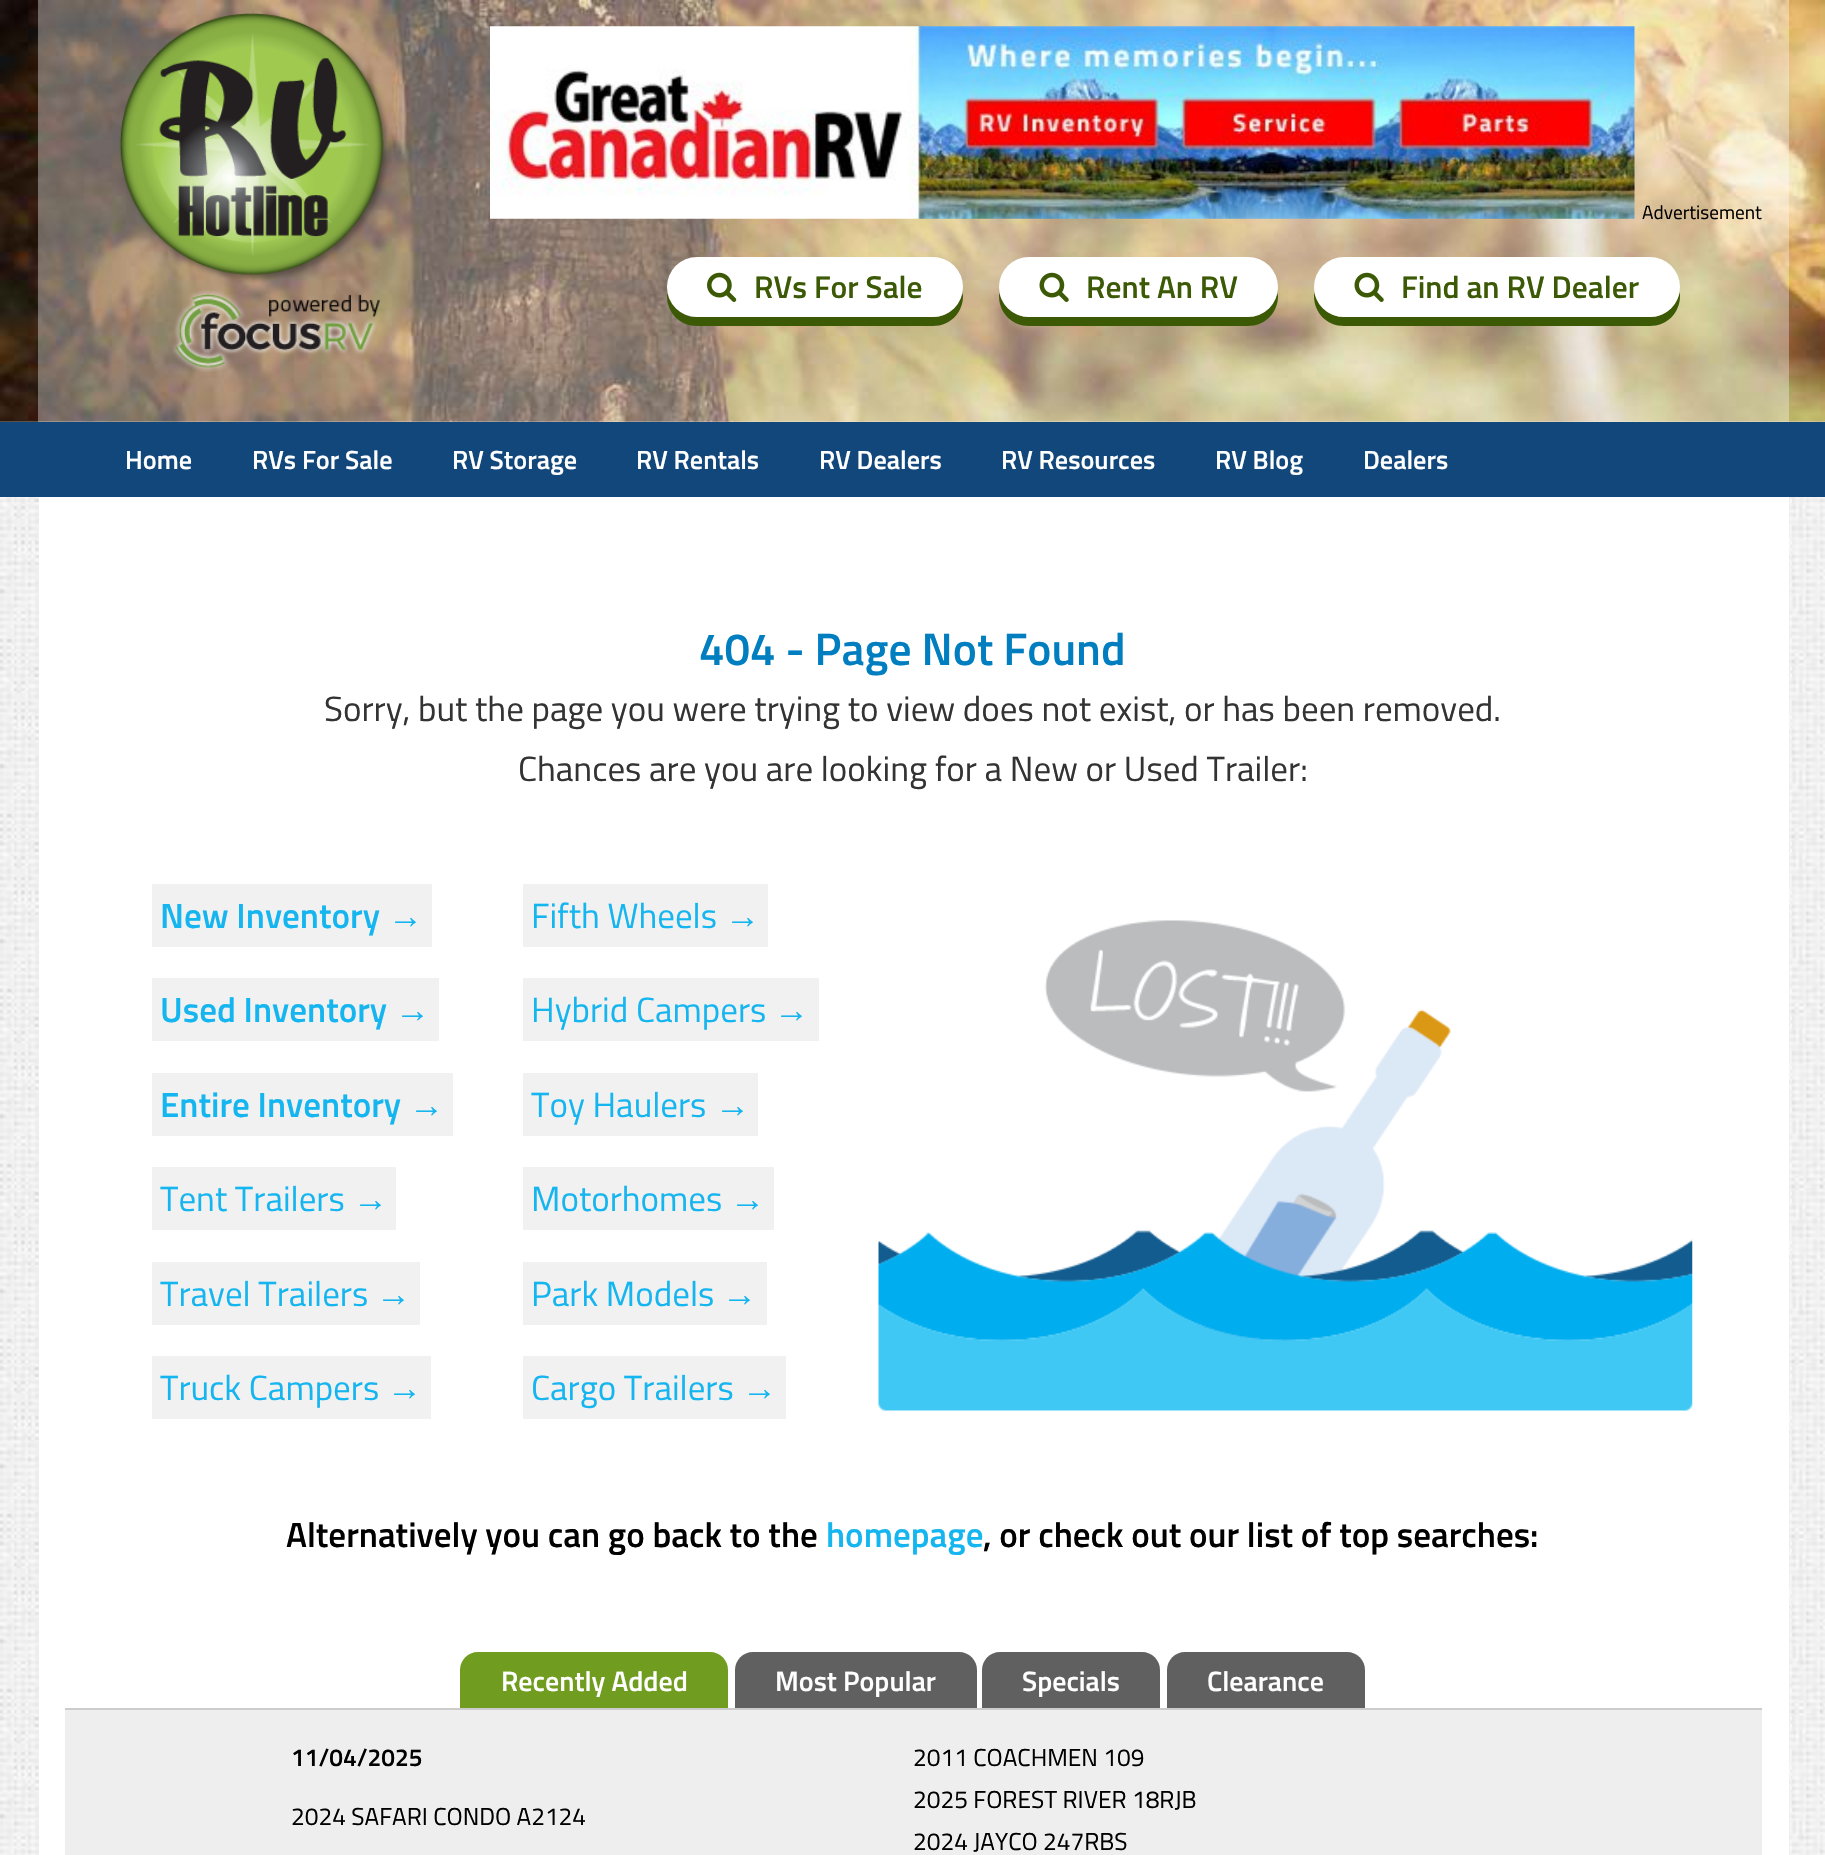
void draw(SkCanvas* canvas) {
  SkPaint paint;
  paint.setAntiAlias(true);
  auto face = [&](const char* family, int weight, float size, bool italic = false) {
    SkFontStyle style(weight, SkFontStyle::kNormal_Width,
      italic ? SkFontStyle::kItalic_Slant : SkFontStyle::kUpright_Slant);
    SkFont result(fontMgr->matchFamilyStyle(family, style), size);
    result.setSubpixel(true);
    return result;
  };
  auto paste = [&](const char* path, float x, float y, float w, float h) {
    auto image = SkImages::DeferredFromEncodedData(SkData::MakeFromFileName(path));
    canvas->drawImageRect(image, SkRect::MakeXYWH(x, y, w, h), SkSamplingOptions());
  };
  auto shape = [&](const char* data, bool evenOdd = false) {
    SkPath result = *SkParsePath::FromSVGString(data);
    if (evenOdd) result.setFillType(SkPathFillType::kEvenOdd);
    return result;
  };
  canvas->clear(0xffffffff);
  paste("img/1.png", 0, 421, 1825, 1434);
  paste("img/2.png", 0, 0, 1825, 422);
  paint.setColor(0x59ffffff);
  canvas->drawRect(SkRect::MakeXYWH(38, 0, 1751, 422), paint);
  paste("img/3.png", 119, 13, 272, 270);
  paste("img/4.png", 490, 26, 1145, 193);
  paint.setColor(0xff3c5a06);
  canvas->drawPath(shape("M667 292V296C667 313 680 326 697 326H933C950 326 963 313 963 296L962 290C961 305 948 317 933 317H696C682 317 670 306 667 292Z"), paint);
  paint.setColor(0xffffffff);
  canvas->drawRoundRect(SkRect::MakeXYWH(667, 257, 296, 60), 30, 30, paint);
  paste("img/5.png", 707, 272, 30, 30);
  paint.setColor(0xff3c5a06);
  canvas->drawPath(shape("M999 291V296C999 313 1012 326 1029 326H1248C1265 326 1278 313 1278 296L1277 290C1276 305 1263 317 1248 317H1029C1014 317 1001 305 999 291Z"), paint);
  paint.setColor(0xffffffff);
  canvas->drawRoundRect(SkRect::MakeXYWH(999, 257, 279, 60), 30, 30, paint);
  paste("img/6.png", 1039, 272, 30, 30);
  paint.setColor(0xff3c5a06);
  canvas->drawPath(shape("M1314 291V296C1314 313 1327 326 1344 326H1650C1667 326 1680 313 1680 296V291C1677 306 1665 317 1650 317H1344C1329 317 1316 305 1314 291Z"), paint);
  paint.setColor(0xffffffff);
  canvas->drawRoundRect(SkRect::MakeXYWH(1314, 257, 366, 60), 30, 30, paint);
  paste("img/6.png", 1354, 272, 30, 30);
  paste("img/7.png", 172, 290, 208, 82);
  {
    const struct { float x, y, w, h; SkColor color; } items[] = {
      {0, 422, 1825, 75, 0xff12477b},
      {39, 497, 1750, 1358, 0xffffffff},
      {152, 884, 280, 63, 0xfff1f1f1},
      {152, 978, 287, 63, 0xfff1f1f1},
      {152, 1073, 301, 63, 0xfff1f1f1},
      {152, 1167, 244, 63, 0xfff1f1f1},
      {152, 1262, 268, 63, 0xfff1f1f1},
      {152, 1356, 279, 63, 0xfff1f1f1},
      {523, 884, 245, 63, 0xfff1f1f1},
      {523, 978, 296, 63, 0xfff1f1f1},
      {523, 1073, 235, 63, 0xfff1f1f1},
      {523, 1167, 251, 63, 0xfff1f1f1},
      {523, 1262, 244, 63, 0xfff1f1f1},
      {523, 1356, 263, 63, 0xfff1f1f1},
    };
    for (auto [x, y, w, h, color] : items) {
      paint.setColor(color);
      canvas->drawRect(SkRect::MakeXYWH(x, y, w, h), paint);
    }
  }
  paste("img/8.png", 878, 920, 815, 491);
  paint.setColor(0xffcccccc);
  canvas->drawRect(SkRect::MakeXYWH(65, 1708, 1697, 2), paint);
  paint.setColor(0xff709c1f);
  canvas->drawPath(shape("M478 1652H710C720 1652 728 1660 728 1670V1708H460V1670C460 1660 468 1652 478 1652Z"), paint);
  paint.setColor(0xff606060);
  canvas->drawPath(shape("M753 1652H959C969 1652 977 1660 977 1670V1708H735V1670C735 1660 743 1652 753 1652Z"), paint);
  canvas->drawPath(shape("M1000 1652H1142C1152 1652 1160 1660 1160 1670V1708H982V1670C982 1660 990 1652 1000 1652Z"), paint);
  canvas->drawPath(shape("M1185 1652H1347C1357 1652 1365 1660 1365 1670V1708H1167V1670C1167 1660 1175 1652 1185 1652Z"), paint);
  paint.setColor(0xffeeeeee);
  canvas->drawRect(SkRect::MakeXYWH(65, 1710, 1697, 145), paint);
  auto f0 = face("Titillium Web", 400, 19.25f);
  paint.setColor(0xff000000);
  canvas->drawString("Advertisement", 1642, 219, f0, paint);
  auto f1 = face("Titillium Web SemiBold", 600, 31.5f);
  paint.setColor(0xff3c5a06);
  {
    const struct { const char* s; float x, y; } items[] = {
      {"RVs For Sale", 754, 298},
      {"Rent An RV", 1086, 298},
      {"Find an RV Dealer", 1401, 298},
    };
    for (auto [s, x, y] : items) {
      canvas->drawString(s, x, y, f1, paint);
    }
  }
  auto f2 = face("Titillium Web SemiBold", 600, 26.25f);
  paint.setColor(0xffffffff);
  {
    const struct { const char* s; float x, y; } items[] = {
      {"Home", 125, 469},
      {"RVs For Sale", 252, 469},
      {"RV Storage", 452, 469},
      {"RV Rentals", 636, 469},
      {"RV Dealers", 819, 469},
      {"RV Resources", 1001, 469},
      {"RV Blog", 1215, 469},
      {"Dealers", 1363, 469},
    };
    for (auto [s, x, y] : items) {
      canvas->drawString(s, x, y, f2, paint);
    }
  }
  auto f3 = face("Titillium Web SemiBold", 600, 45.5f);
  paint.setColor(0xff007ec0);
  canvas->drawString("404 - Page Not Found", 699, 665, f3, paint);
  auto f4 = face("Titillium Web", 400, 35);
  paint.setColor(0xff333333);
  canvas->drawString("Sorry, but the page you were trying to view does not exist, or has been removed.", 324, 721, f4, paint);
  canvas->drawString("Chances are you are looking for a New or Used Trailer:", 518, 781, f4, paint);
  auto f5 = face("Titillium Web SemiBold", 600, 35);
  paint.setColor(0xff15b5f0);
  canvas->drawString("New Inventory", 160, 928, f5, paint);
  auto f6 = face("Liberation Sans", 700, 35);
  canvas->drawString("→", 388, 928, f6, paint);
  canvas->drawString("Used Inventory", 160, 1022, f5, paint);
  canvas->drawString("→", 395, 1022, f6, paint);
  canvas->drawString("Entire Inventory", 160, 1117, f5, paint);
  canvas->drawString("→", 409, 1117, f6, paint);
  canvas->drawString("Tent Trailers", 160, 1211, f4, paint);
  auto f7 = face("Liberation Sans", 400, 35);
  canvas->drawString("→", 353, 1211, f7, paint);
  canvas->drawString("Travel Trailers", 160, 1306, f4, paint);
  canvas->drawString("→", 376, 1306, f7, paint);
  canvas->drawString("Truck Campers", 160, 1400, f4, paint);
  canvas->drawString("→", 387, 1400, f7, paint);
  canvas->drawString("Fifth Wheels", 531, 928, f4, paint);
  canvas->drawString("→", 725, 928, f7, paint);
  canvas->drawString("Hybrid Campers", 531, 1022, f4, paint);
  canvas->drawString("→", 774, 1022, f7, paint);
  canvas->drawString("Toy Haulers", 531, 1117, f4, paint);
  canvas->drawString("→", 715, 1117, f7, paint);
  canvas->drawString("Motorhomes", 531, 1211, f4, paint);
  canvas->drawString("→", 730, 1211, f7, paint);
  canvas->drawString("Park Models", 531, 1306, f4, paint);
  canvas->drawString("→", 722, 1306, f7, paint);
  canvas->drawString("Cargo Trailers", 531, 1400, f4, paint);
  canvas->drawString("→", 742, 1400, f7, paint);
  paint.setColor(0xff000000);
  canvas->drawString("Alternatively you can go back to the", 286, 1547, f5, paint);
  paint.setColor(0xff15b5f0);
  canvas->drawString("homepage", 826, 1547, f5, paint);
  paint.setColor(0xff000000);
  canvas->drawString(", or check out our list of top searches:", 983, 1547, f5, paint);
  auto f8 = face("Titillium Web SemiBold", 600, 28);
  paint.setColor(0xffffffff);
  {
    const struct { const char* s; float x, y; } items[] = {
      {"Recently Added", 501, 1691},
      {"Most Popular", 775, 1691},
      {"Specials", 1022, 1691},
      {"Clearance", 1207, 1691},
    };
    for (auto [s, x, y] : items) {
      canvas->drawString(s, x, y, f8, paint);
    }
  }
  auto f9 = face("Titillium Web SemiBold", 600, 24.5f);
  paint.setColor(0xff000000);
  canvas->drawString("11/04/2025", 291, 1766, f9, paint);
  auto f10 = face("Titillium Web", 400, 24.5f);
  {
    const struct { const char* s; float x, y; } items[] = {
      {"2024 SAFARI CONDO A2124", 291, 1825},
      {"2011 COACHMEN 109", 913, 1766},
      {"2025 FOREST RIVER 18RJB", 913, 1808},
      {"2024 JAYCO 247RBS", 913, 1850},
    };
    for (auto [s, x, y] : items) {
      canvas->drawString(s, x, y, f10, paint);
    }
  }
}
